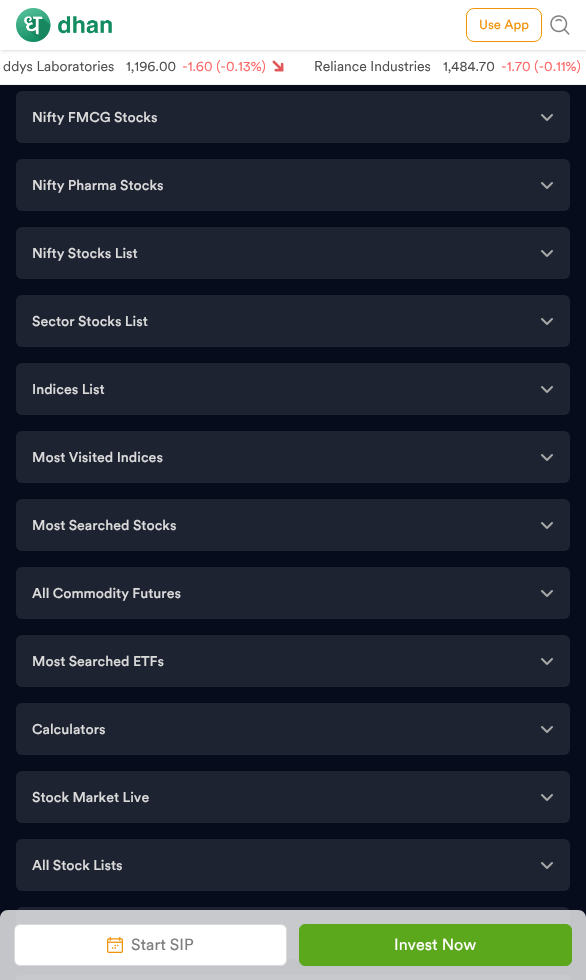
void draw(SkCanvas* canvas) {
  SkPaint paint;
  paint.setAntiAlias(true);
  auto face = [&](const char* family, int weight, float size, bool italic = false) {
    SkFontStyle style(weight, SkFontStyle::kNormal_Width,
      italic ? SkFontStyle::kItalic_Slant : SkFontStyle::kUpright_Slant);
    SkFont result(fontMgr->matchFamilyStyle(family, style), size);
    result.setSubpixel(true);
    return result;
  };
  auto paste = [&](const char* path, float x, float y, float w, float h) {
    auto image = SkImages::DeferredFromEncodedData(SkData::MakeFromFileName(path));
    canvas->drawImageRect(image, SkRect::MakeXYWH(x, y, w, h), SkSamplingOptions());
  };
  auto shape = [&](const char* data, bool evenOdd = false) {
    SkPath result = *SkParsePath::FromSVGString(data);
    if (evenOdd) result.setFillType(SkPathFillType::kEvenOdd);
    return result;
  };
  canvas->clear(0xff060c1b);
  paint.setColor(0xffffffff);
  canvas->drawRect(SkRect::MakeXYWH(0, 50, 586, 34), paint);
  paint.setColor(0xffdddddd);
  paint.setMaskFilter(SkMaskFilter::MakeBlur(kNormal_SkBlurStyle, 1.5f));
  canvas->drawRect(SkRect::MakeXYWH(1, 1, 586, 50), paint);
  paint.setMaskFilter(nullptr);
  paint.setColor(0xffffffff);
  canvas->drawRect(SkRect::MakeXYWH(0, 0, 586, 50), paint);
  paste("img/1.png", 16, 8, 96, 34);
  paint.setStroke(true);
  paint.setStrokeWidth(1);
  paint.setColor(0xffef9309);
  canvas->drawRoundRect(SkRect::MakeXYWH(466.5f, 8.5f, 75, 33), 7.5f, 7.5f, paint);
  paste("img/2.png", 550, 15, 20, 20);
  paint.setStroke(false);
  paint.setColor(0xfff1f1f1);
  canvas->drawRect(SkRect::MakeXYWH(0, 84, 586, 1), paint);
  paste("img/3.png", 272, 60, 12, 12);
  paint.setColor(0xff1e2331);
  canvas->drawRoundRect(SkRect::MakeXYWH(16, 91, 554, 52), 6, 6, paint);
  paste("img/4.png", 541, 114, 12, 7);
  canvas->drawRoundRect(SkRect::MakeXYWH(16, 159, 554, 52), 6, 6, paint);
  paste("img/4.png", 541, 182, 12, 7);
  canvas->drawRoundRect(SkRect::MakeXYWH(16, 227, 554, 52), 6, 6, paint);
  paste("img/4.png", 541, 250, 12, 7);
  canvas->drawRoundRect(SkRect::MakeXYWH(16, 295, 554, 52), 6, 6, paint);
  paste("img/4.png", 541, 318, 12, 7);
  canvas->drawRoundRect(SkRect::MakeXYWH(16, 363, 554, 52), 6, 6, paint);
  paste("img/4.png", 541, 386, 12, 7);
  canvas->drawRoundRect(SkRect::MakeXYWH(16, 431, 554, 52), 6, 6, paint);
  paste("img/4.png", 541, 454, 12, 7);
  canvas->drawRoundRect(SkRect::MakeXYWH(16, 499, 554, 52), 6, 6, paint);
  paste("img/4.png", 541, 522, 12, 7);
  canvas->drawRoundRect(SkRect::MakeXYWH(16, 567, 554, 52), 6, 6, paint);
  paste("img/4.png", 541, 590, 12, 7);
  canvas->drawRoundRect(SkRect::MakeXYWH(16, 635, 554, 52), 6, 6, paint);
  paste("img/4.png", 541, 658, 12, 7);
  canvas->drawRoundRect(SkRect::MakeXYWH(16, 703, 554, 52), 6, 6, paint);
  paste("img/4.png", 541, 726, 12, 7);
  canvas->drawRoundRect(SkRect::MakeXYWH(16, 771, 554, 52), 6, 6, paint);
  paste("img/4.png", 541, 794, 12, 7);
  canvas->drawRoundRect(SkRect::MakeXYWH(16, 839, 554, 52), 6, 6, paint);
  paste("img/4.png", 541, 862, 12, 7);
  canvas->drawRoundRect(SkRect::MakeXYWH(16, 907, 554, 52), 6, 6, paint);
  canvas->drawRoundRect(SkRect::MakeXYWH(16, 975, 554, 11), 6, 6, paint);
  paint.setColor(0xccf2f2f2);
  canvas->drawPath(shape("M8 910H578C582.5 910 586 913.5 586 918V980H0V918C0 913.5 3.5 910 8 910Z"), paint);
  paint.setColor(0xffffffff);
  canvas->drawRoundRect(SkRect::MakeXYWH(14.5f, 924.5f, 272, 41), 5.5f, 5.5f, paint);
  paint.setStroke(true);
  paint.setColor(0xffdadada);
  canvas->drawRoundRect(SkRect::MakeXYWH(14.5f, 924.5f, 272, 41), 5.5f, 5.5f, paint);
  paste("img/5.png", 107, 937, 16, 16);
  paint.setStroke(false);
  paint.setColor(0xff5ca81d);
  canvas->drawRoundRect(SkRect::MakeXYWH(299.5f, 924.5f, 272, 41), 5.5f, 5.5f, paint);
  paint.setStroke(true);
  canvas->drawRoundRect(SkRect::MakeXYWH(299.5f, 924.5f, 272, 41), 5.5f, 5.5f, paint);
  auto f0 = face("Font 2", 400, 13);
  paint.setStroke(false);
  paint.setColor(0xffef9309);
  canvas->drawString("Use App", 479, 29, f0, paint);
  auto f1 = face("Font", 400, 14);
  paint.setColor(0xff4f4f4f);
  canvas->drawString("ddys Laboratories", 3, 71, f1, paint);
  canvas->drawString("1,196.00", 126, 71, f1, paint);
  paint.setColor(0xffff6767);
  canvas->drawString("-1.60 (-0.13%)", 182, 71, f1, paint);
  paint.setColor(0xff4f4f4f);
  canvas->drawString("Reliance Industries", 314, 71, f1, paint);
  canvas->drawString("1,484.70", 443, 71, f1, paint);
  paint.setColor(0xffff6767);
  canvas->drawString("-1.70 (-0.11%)", 501, 71, f1, paint);
  auto f2 = face("Font", 500, 14);
  paint.setColor(0xffdadada);
  {
    const struct { const char* s; float x, y; } items[] = {
      {"Nifty FMCG Stocks", 32, 122},
      {"Nifty Pharma Stocks", 32, 190},
      {"Nifty Stocks List", 32, 258},
      {"Sector Stocks List", 32, 326},
      {"Indices List", 32, 394},
      {"Most Visited Indices", 32, 462},
      {"Most Searched Stocks", 32, 530},
      {"All Commodity Futures", 32, 598},
      {"Most Searched ETFs", 32, 666},
      {"Calculators", 32, 734},
      {"Stock Market Live", 32, 802},
      {"All Stock Lists", 32, 870},
    };
    for (auto [s, x, y] : items) {
      canvas->drawString(s, x, y, f2, paint);
    }
  }
  auto f3 = face("Font 2", 400, 16);
  paint.setColor(0xff817e7e);
  canvas->drawString("Start SIP", 131, 950, f3, paint);
  paint.setColor(0xffffffff);
  canvas->drawString("Invest Now", 394, 950, f3, paint);
}
